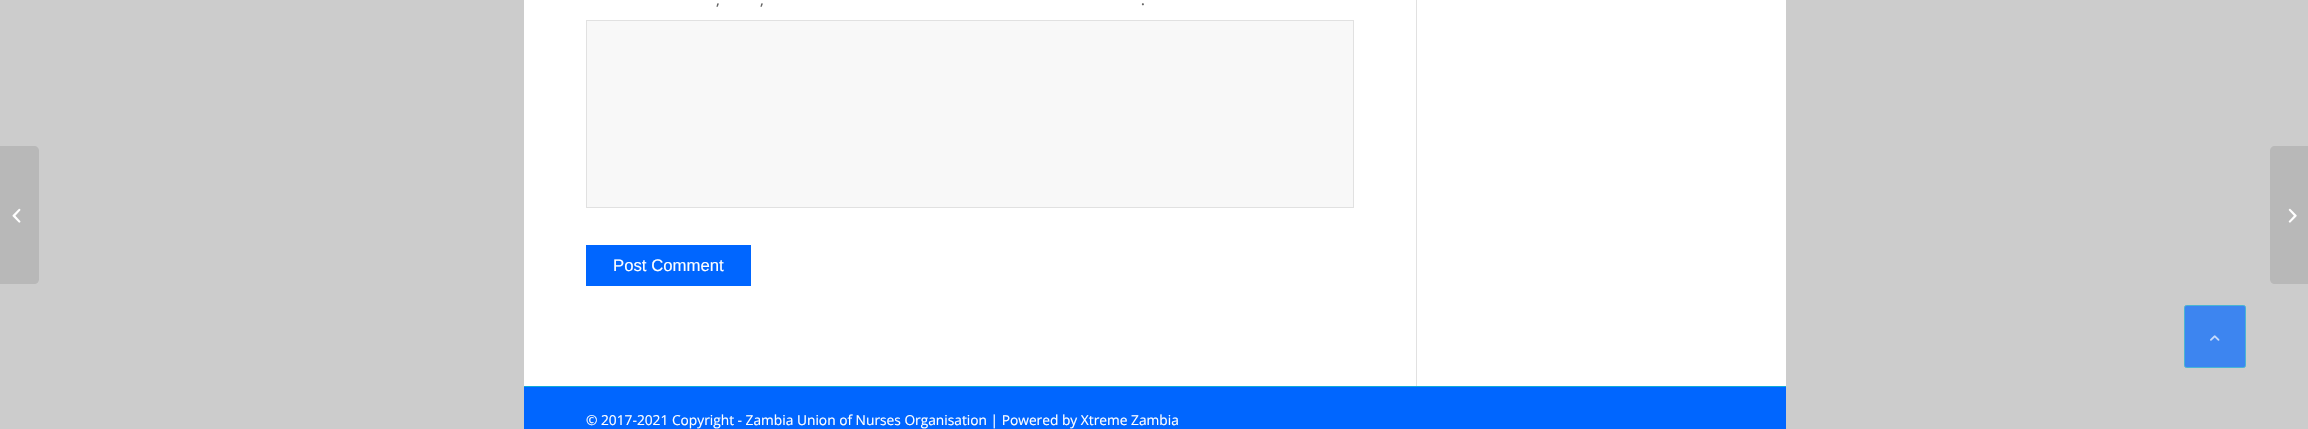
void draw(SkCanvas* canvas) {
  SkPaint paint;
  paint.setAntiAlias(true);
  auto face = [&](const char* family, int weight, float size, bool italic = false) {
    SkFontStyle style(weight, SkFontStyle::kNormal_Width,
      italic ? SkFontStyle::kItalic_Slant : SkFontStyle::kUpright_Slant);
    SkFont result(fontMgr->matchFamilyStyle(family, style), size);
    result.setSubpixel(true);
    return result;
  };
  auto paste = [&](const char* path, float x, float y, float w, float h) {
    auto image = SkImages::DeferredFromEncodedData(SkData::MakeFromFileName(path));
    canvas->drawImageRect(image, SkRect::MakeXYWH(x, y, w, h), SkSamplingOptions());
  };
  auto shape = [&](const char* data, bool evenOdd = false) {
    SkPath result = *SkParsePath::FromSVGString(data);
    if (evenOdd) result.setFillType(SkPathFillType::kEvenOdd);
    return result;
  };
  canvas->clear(0xffcccccc);
  paint.setColor(0xffb8b8b8);
  canvas->drawPath(shape("M0 146H34C37 146 39 148 39 151V279C39 282 37 284 34 284H0Z"), paint);
  paste("img/1.png", 12, 208, 9, 15);
  paint.setColor(0xffffffff);
  canvas->drawRect(SkRect::MakeXYWH(524, 0, 1262, 386), paint);
  paint.setColor(0xffe1e1e1);
  canvas->drawRect(SkRect::MakeXYWH(1416, 0, 1, 386), paint);
  paint.setColor(0xfff8f8f8);
  canvas->drawRect(SkRect::MakeXYWH(586.5f, 20.5f, 767, 187), paint);
  paint.setStroke(true);
  paint.setStrokeWidth(1);
  paint.setColor(0xffe1e1e1);
  canvas->drawRect(SkRect::MakeXYWH(586.5f, 20.5f, 767, 187), paint);
  paint.setStroke(false);
  {
    const struct { float x, y, w, h; SkColor color; } items[] = {
      {586, 245, 165, 41, 0xff0066ff},
      {524, 387, 1262, 42, 0xff0066ff},
      {524, 386, 1262, 1, 0xff11abd6},
    };
    for (auto [x, y, w, h, color] : items) {
      paint.setColor(color);
      canvas->drawRect(SkRect::MakeXYWH(x, y, w, h), paint);
    }
  }
  paint.setColor(0xffb8b8b8);
  canvas->drawPath(shape("M2275 146H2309V284H2275C2272 284 2270 282 2270 279V151C2270 148 2272 146 2275 146Z"), paint);
  paste("img/2.png", 2288, 208, 9, 15);
  paint.setColor(0xff3d85f0);
  canvas->drawRoundRect(SkRect::MakeXYWH(2184.5f, 305.5f, 61, 62), 2, 2, paint);
  paint.setStroke(true);
  paint.setColor(0xff49b5d3);
  canvas->drawRoundRect(SkRect::MakeXYWH(2184.5f, 305.5f, 61, 62), 2, 2, paint);
  paste("img/3.png", 2210, 335, 10, 6);
  auto f0 = face("Open Sans", 600, 13.75f);
  paint.setStroke(false);
  paint.setColor(0xff666666);
  {
    const struct { const char* s; float x, y; } items[] = {
      {",", 716, 5},
      {",", 760, 5},
      {".", 1141, 5},
    };
    for (auto [s, x, y] : items) {
      canvas->drawString(s, x, y, f0, paint);
    }
  }
  auto f1 = face("Liberation Sans", 400, 16.75f);
  paint.setColor(0xffffffff);
  canvas->drawString("Post Comment", 613, 271, f1, paint);
  auto f2 = face("Open Sans", 400, 13.75f);
  canvas->drawString("© 2017-2021 Copyright - Zambia Union of Nurses Organisation | Powered by Xtreme Zambia", 586, 425, f2, paint);
}
